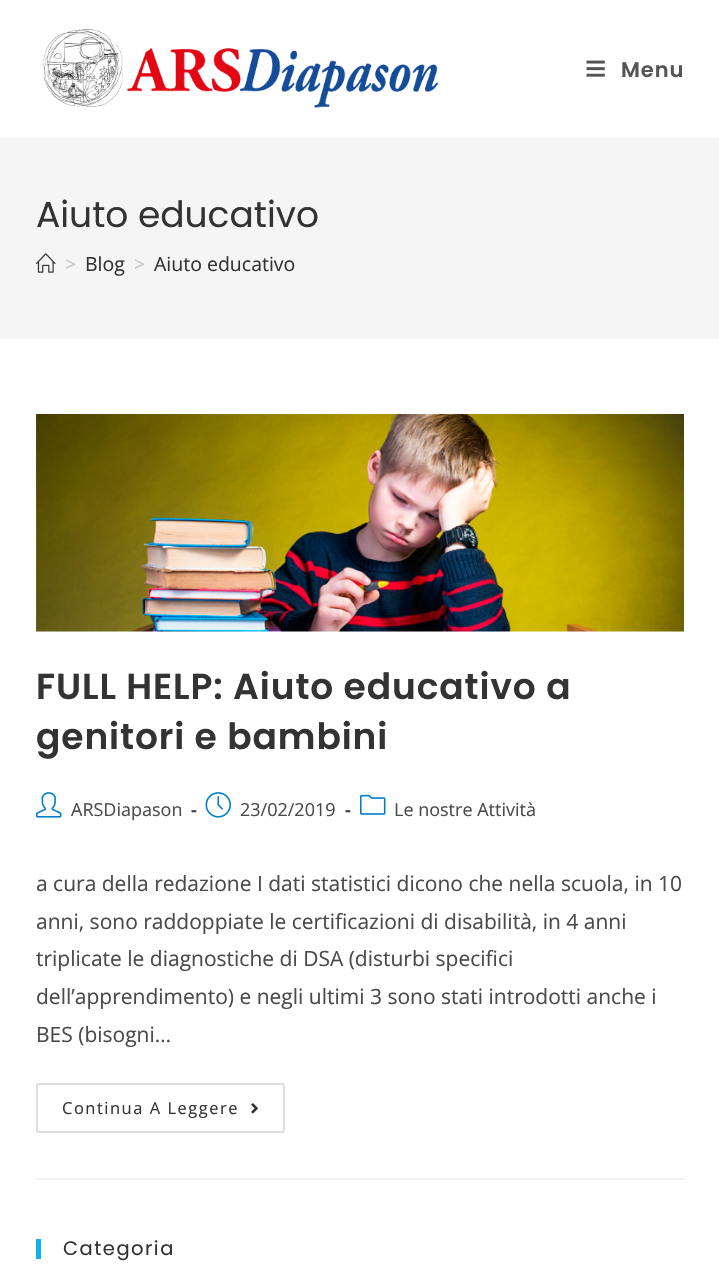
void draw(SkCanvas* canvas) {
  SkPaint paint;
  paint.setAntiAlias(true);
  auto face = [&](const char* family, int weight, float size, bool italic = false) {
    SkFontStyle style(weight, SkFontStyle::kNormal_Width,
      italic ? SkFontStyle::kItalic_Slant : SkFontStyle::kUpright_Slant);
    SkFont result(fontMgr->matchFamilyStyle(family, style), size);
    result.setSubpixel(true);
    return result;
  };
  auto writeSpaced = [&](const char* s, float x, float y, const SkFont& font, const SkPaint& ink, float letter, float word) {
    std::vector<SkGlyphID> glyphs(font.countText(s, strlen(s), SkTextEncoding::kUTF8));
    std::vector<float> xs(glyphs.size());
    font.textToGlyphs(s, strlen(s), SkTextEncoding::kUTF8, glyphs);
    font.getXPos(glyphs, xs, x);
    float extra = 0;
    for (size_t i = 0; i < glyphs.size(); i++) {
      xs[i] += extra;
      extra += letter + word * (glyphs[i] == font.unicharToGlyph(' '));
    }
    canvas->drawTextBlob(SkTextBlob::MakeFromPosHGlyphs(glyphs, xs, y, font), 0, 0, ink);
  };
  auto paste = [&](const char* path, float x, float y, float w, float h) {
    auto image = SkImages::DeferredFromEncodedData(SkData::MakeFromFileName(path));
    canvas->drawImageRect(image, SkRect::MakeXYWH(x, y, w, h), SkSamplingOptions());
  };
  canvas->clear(0xffffffff);
  paste("img/1.png", 43, 29, 396, 79);
  paste("img/2.png", 586, 60, 19, 17);
  paint.setColor(0xfff5f5f5);
  canvas->drawRect(SkRect::MakeXYWH(0, 138, 719, 201), paint);
  paste("img/3.png", 36, 253, 20, 20);
  paint.setColor(0xfff1f1f1);
  canvas->drawRect(SkRect::MakeXYWH(36, 1178, 648, 2), paint);
  paste("img/4.png", 36, 414, 648, 218);
  paste("img/5.png", 36, 792, 26, 26);
  paste("img/6.png", 205, 792, 26, 26);
  paste("img/7.png", 360, 794, 26, 21);
  paint.setStroke(true);
  paint.setStrokeWidth(2);
  paint.setColor(0xffdddddd);
  canvas->drawRoundRect(SkRect::MakeXYWH(37, 1084, 247, 48), 2, 2, paint);
  paste("img/8.png", 251, 1103, 7, 11);
  paint.setStroke(false);
  paint.setColor(0xff13aff0);
  canvas->drawRect(SkRect::MakeXYWH(36, 1239, 5, 20), paint);
  auto f0 = face("Poppins", 600, 21);
  paint.setColor(0xff555555);
  writeSpaced("Menu", 621, 77, f0, paint, 0.9f, 0);
  auto f1 = face("Poppins", 400, 36);
  paint.setColor(0xff333333);
  canvas->drawString("Aiuto educativo", 36, 227, f1, paint);
  auto f2 = face("Open Sans", 400, 19.5f);
  paint.setColor(0xffc6c6c6);
  canvas->drawString(">", 65, 271, f2, paint);
  paint.setColor(0xff333333);
  canvas->drawString("Blog", 85, 271, f2, paint);
  paint.setColor(0xffc6c6c6);
  canvas->drawString(">", 134, 271, f2, paint);
  paint.setColor(0xff333333);
  canvas->drawString("Aiuto educativo", 154, 271, f2, paint);
  auto f3 = face("Poppins", 600, 36);
  writeSpaced("FULL HELP: Aiuto educativo a", 36, 699, f3, paint, 0.9f, 0);
  writeSpaced("genitori e bambini", 36, 749, f3, paint, 0.9f, 0);
  auto f4 = face("Open Sans", 400, 18);
  paint.setColor(0xff4a4a4a);
  canvas->drawString("ARSDiapason", 71, 816, f4, paint);
  auto f5 = face("Open Sans", 700, 18);
  canvas->drawString("-", 191, 816, f5, paint);
  canvas->drawString("23/02/2019", 240, 816, f4, paint);
  canvas->drawString("-", 345, 816, f5, paint);
  canvas->drawString("Le nostre Attività", 394, 816, f4, paint);
  auto f6 = face("Open Sans", 400, 21);
  {
    const struct { const char* s; float x, y; } items[] = {
      {"a cura della redazione I dati statistici dicono che nella scuola, in 10", 36, 891},
      {"anni, sono raddoppiate le certificazioni di disabilità, in 4 anni", 36, 929},
      {"triplicate le diagnostiche di DSA (disturbi specifici", 36, 966},
      {"dell’apprendimento) e negli ultimi 3 sono stati introdotti anche i", 36, 1004},
      {"BES (bisogni…", 36, 1042},
    };
    for (auto [s, x, y] : items) {
      canvas->drawString(s, x, y, f6, paint);
    }
  }
  auto f7 = face("Open Sans", 400, 16.5f);
  paint.setColor(0xff333333);
  writeSpaced("Continua A Leggere", 62, 1114, f7, paint, 1.5f, 0);
  auto f8 = face("Poppins", 400, 19.5f);
  writeSpaced("Categoria", 63, 1255, f8, paint, 1.5f, 0);
}
